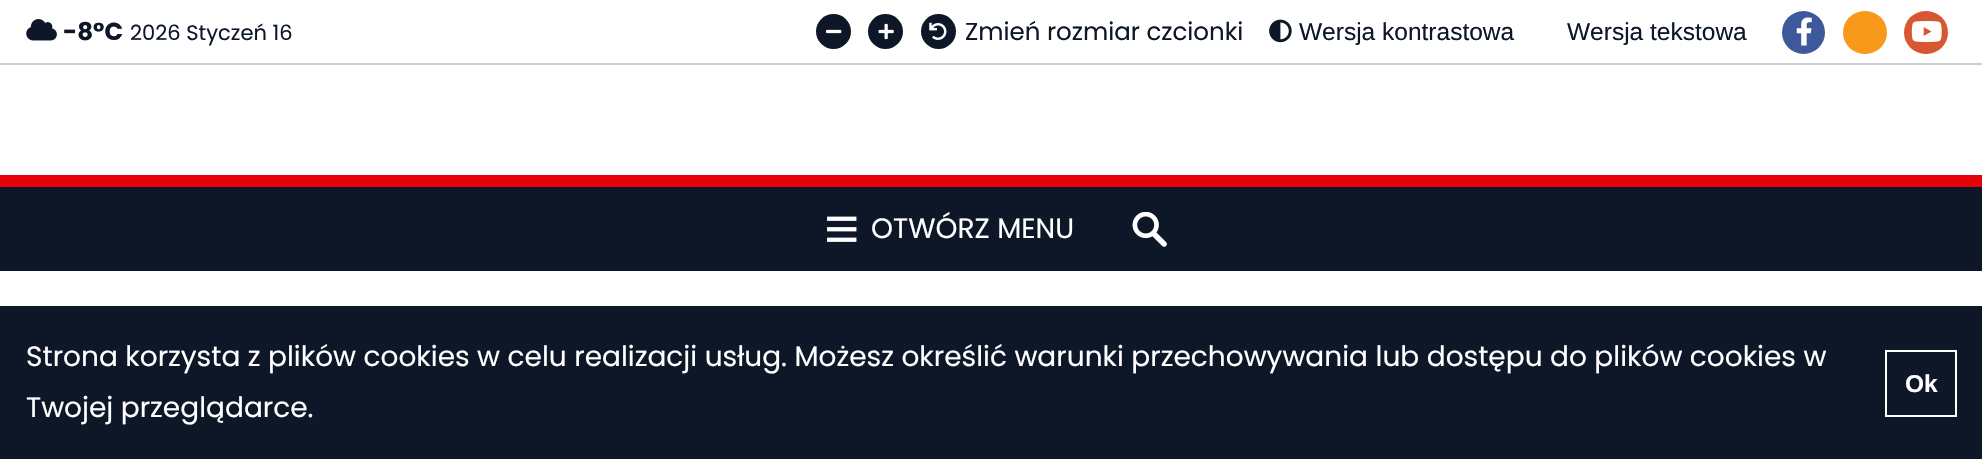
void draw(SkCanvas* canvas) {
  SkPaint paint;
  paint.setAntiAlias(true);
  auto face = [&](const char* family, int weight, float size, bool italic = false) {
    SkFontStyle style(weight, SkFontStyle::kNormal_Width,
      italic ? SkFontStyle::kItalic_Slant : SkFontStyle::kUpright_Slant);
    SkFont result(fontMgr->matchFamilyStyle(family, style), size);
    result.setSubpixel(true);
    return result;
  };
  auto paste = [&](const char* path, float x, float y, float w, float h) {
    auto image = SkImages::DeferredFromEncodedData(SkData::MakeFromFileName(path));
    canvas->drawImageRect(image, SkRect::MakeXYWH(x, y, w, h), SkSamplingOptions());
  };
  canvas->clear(0xffffffff);
  paste("img/1.png", 26, 19, 31, 22);
  paint.setColor(0xff0e1728);
  canvas->drawCircle(833.5f, 31.5f, 17.5f, paint);
  paste("img/2.png", 826, 29, 16, 5);
  canvas->drawCircle(885.5f, 31.5f, 17.5f, paint);
  paste("img/3.png", 878, 23, 16, 17);
  canvas->drawCircle(938.5f, 31.5f, 17.5f, paint);
  paste("img/4.png", 929, 22, 18, 18);
  paste("img/5.png", 1269, 19, 23, 24);
  paint.setColor(0xff3d599b);
  canvas->drawCircle(1803.5f, 32.5f, 21.5f, paint);
  paste("img/6.png", 1796, 17, 16, 29);
  paint.setColor(0xfff8991c);
  canvas->drawRoundRect(SkRect::MakeXYWH(1843, 11, 44, 43), 21.5f, 21.5f, paint);
  paint.setColor(0xffd65731);
  canvas->drawRoundRect(SkRect::MakeXYWH(1904, 11, 44, 43), 21.5f, 21.5f, paint);
  paste("img/7.png", 1911, 21, 31, 21);
  {
    const struct { float x, y, w, h; SkColor color; } items[] = {
      {0, 63, 1982, 2, 0xffccd0d5},
      {0, 175, 1982, 12, 0xffe60008},
      {0, 187, 1982, 84, 0xff0e1728},
    };
    for (auto [x, y, w, h, color] : items) {
      paint.setColor(color);
      canvas->drawRect(SkRect::MakeXYWH(x, y, w, h), paint);
    }
  }
  paste("img/8.png", 827, 216, 30, 26);
  paste("img/9.png", 1132, 212, 35, 35);
  canvas->drawRect(SkRect::MakeXYWH(0, 306, 1982, 153), paint);
  paint.setStroke(true);
  paint.setStrokeWidth(2);
  paint.setColor(0xffffffff);
  canvas->drawRect(SkRect::MakeXYWH(1886, 351, 70, 65), paint);
  auto f0 = face("Poppins", 700, 24.5f);
  paint.setStroke(false);
  paint.setColor(0xff0e1728);
  canvas->drawString("-8°C", 63, 40, f0, paint);
  auto f1 = face("Poppins", 400, 21);
  canvas->drawString("2026 Styczeń 16", 130, 40, f1, paint);
  auto f2 = face("Poppins", 400, 24.5f);
  canvas->drawString("Zmień rozmiar czcionki", 965, 40, f2, paint);
  auto f3 = face("Liberation Sans", 400, 24.5f);
  canvas->drawString("Wersja kontrastowa", 1299, 40, f3, paint);
  canvas->drawString("Wersja tekstowa", 1567, 40, f3, paint);
  auto f4 = face("Poppins", 400, 28);
  paint.setColor(0xffffffff);
  {
    const struct { const char* s; float x, y; } items[] = {
      {"OTWÓRZ MENU", 871, 238},
      {"Strona korzysta z plików cookies w celu realizacji usług. Możesz określić warunki przechowywania lub dostępu do plików cookies w", 26, 366},
      {"Twojej przeglądarce.", 26, 417},
    };
    for (auto [s, x, y] : items) {
      canvas->drawString(s, x, y, f4, paint);
    }
  }
  auto f5 = face("Liberation Sans", 700, 24.5f);
  canvas->drawString("Ok", 1905, 392, f5, paint);
}
